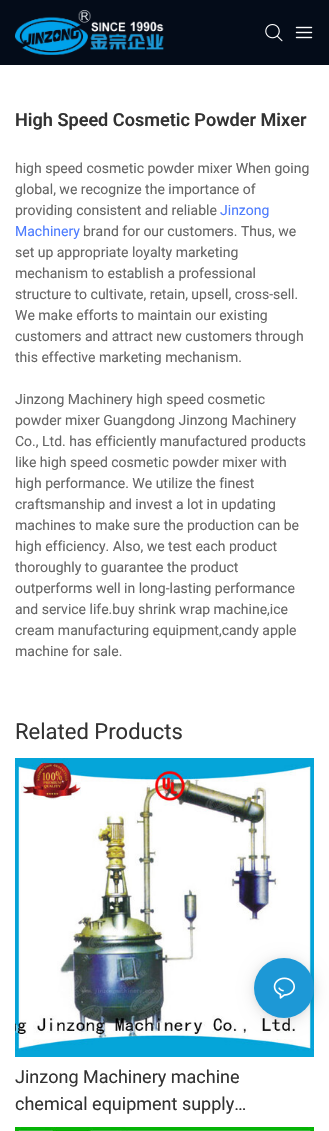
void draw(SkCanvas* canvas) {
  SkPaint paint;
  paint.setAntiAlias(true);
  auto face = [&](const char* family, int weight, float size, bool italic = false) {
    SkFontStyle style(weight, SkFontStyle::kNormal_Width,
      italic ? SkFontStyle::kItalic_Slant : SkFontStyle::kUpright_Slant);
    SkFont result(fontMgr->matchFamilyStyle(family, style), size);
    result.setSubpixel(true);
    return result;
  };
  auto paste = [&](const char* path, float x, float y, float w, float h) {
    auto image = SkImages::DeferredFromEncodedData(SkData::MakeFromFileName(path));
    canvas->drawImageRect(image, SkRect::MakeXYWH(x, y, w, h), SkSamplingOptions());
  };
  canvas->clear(0xffffffff);
  paint.setColor(0xff040c19);
  canvas->drawRect(SkRect::MakeXYWH(0, 0, 329, 65), paint);
  paste("img/1.png", 15, 10, 149, 45);
  paste("img/2.png", 265, 24, 18, 18);
  paste("img/3.png", 295, 26, 18, 13);
  paste("img/4.png", 15, 758, 299, 299);
  paste("img/5.png", 15, 1127, 299, 4);
  paint.setColor(0x1f000000);
  paint.setMaskFilter(SkMaskFilter::MakeBlur(kNormal_SkBlurStyle, 8));
  canvas->drawRoundRect(SkRect::MakeXYWH(254, 960, 60, 60), 30, 30, paint);
  paint.setMaskFilter(nullptr);
  paint.setColor(0x0f000000);
  paint.setMaskFilter(SkMaskFilter::MakeBlur(kNormal_SkBlurStyle, 2));
  canvas->drawRoundRect(SkRect::MakeXYWH(254, 959, 60, 60), 30, 30, paint);
  paint.setMaskFilter(nullptr);
  paint.setColor(0xff1d98d6);
  canvas->drawCircle(284, 988, 30, paint);
  paste("img/6.png", 273, 977, 22, 22);
  auto f0 = face("Roboto", 600, 18.1f);
  paint.setColor(0xff333333);
  canvas->drawString("High Speed Cosmetic Powder Mixer", 15, 126, f0, paint);
  auto f1 = face("Roboto", 400, 14);
  paint.setColor(0xff666666);
  {
    const struct { const char* s; float x, y; } items[] = {
      {"high speed cosmetic powder mixer When going", 15, 173},
      {"global, we recognize the importance of", 15, 194},
      {"providing consistent and reliable", 15, 215},
    };
    for (auto [s, x, y] : items) {
      canvas->drawString(s, x, y, f1, paint);
    }
  }
  paint.setColor(0xff4d7cfe);
  canvas->drawString("Jinzong", 220, 215, f1, paint);
  canvas->drawString("Machinery", 15, 236, f1, paint);
  paint.setColor(0xff666666);
  {
    const struct { const char* s; float x, y; } items[] = {
      {"brand for our customers. Thus, we", 83, 236},
      {"set up appropriate loyalty marketing", 15, 257},
      {"mechanism to establish a professional", 15, 278},
      {"structure to cultivate, retain, upsell, cross-sell.", 15, 299},
      {"We make efforts to maintain our existing", 15, 320},
      {"customers and attract new customers through", 15, 341},
      {"this effective marketing mechanism.", 15, 362},
      {"Jinzong Machinery high speed cosmetic", 15, 404},
      {"powder mixer Guangdong Jinzong Machinery", 15, 425},
      {"Co., Ltd. has efficiently manufactured products", 15, 446},
      {"like high speed cosmetic powder mixer with", 15, 467},
      {"high performance. We utilize the finest", 15, 488},
      {"craftsmanship and invest a lot in updating", 15, 509},
      {"machines to make sure the production can be", 15, 530},
      {"high efficiency. Also, we test each product", 15, 551},
      {"thoroughly to guarantee the product", 15, 572},
      {"outperforms well in long-lasting performance", 15, 593},
      {"and service life.buy shrink wrap machine,ice", 15, 614},
      {"cream manufacturing equipment,candy apple", 15, 635},
      {"machine for sale.", 15, 656},
    };
    for (auto [s, x, y] : items) {
      canvas->drawString(s, x, y, f1, paint);
    }
  }
  auto f2 = face("Roboto", 400, 22);
  paint.setColor(0xff333333);
  canvas->drawString("Related Products", 15, 739, f2, paint);
  auto f3 = face("Roboto", 400, 18);
  canvas->drawString("Jinzong Machinery machine", 15, 1083, f3, paint);
  canvas->drawString("chemical equipment supply…", 15, 1110, f3, paint);
}
